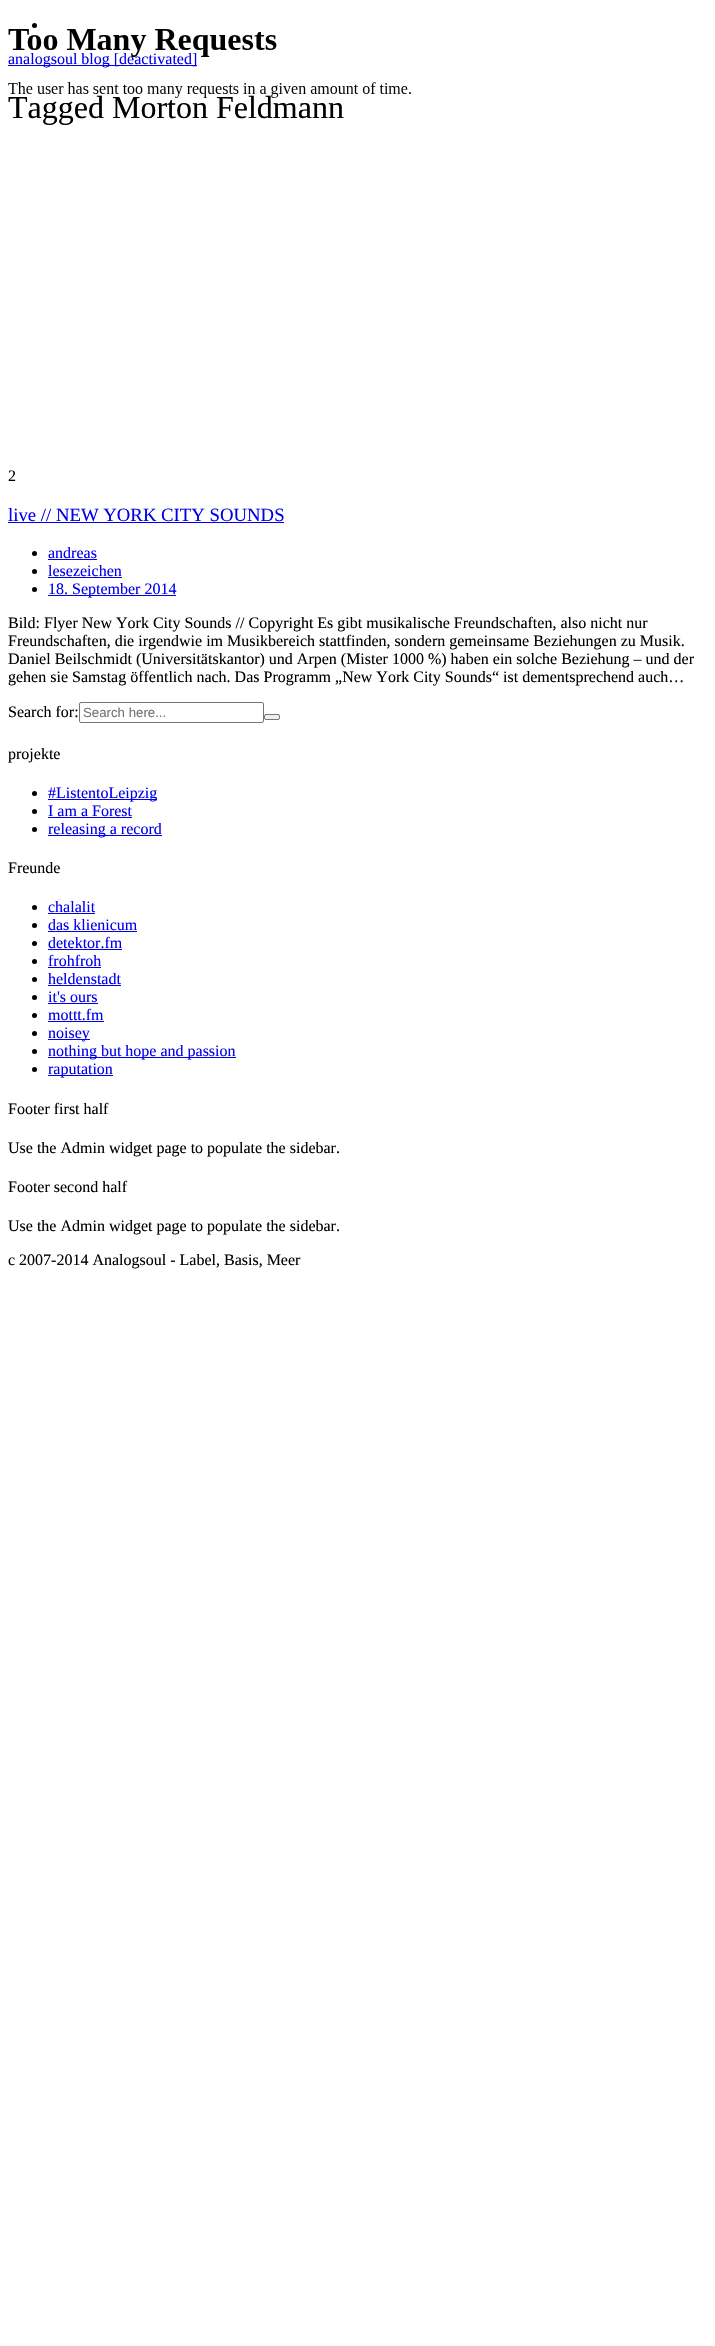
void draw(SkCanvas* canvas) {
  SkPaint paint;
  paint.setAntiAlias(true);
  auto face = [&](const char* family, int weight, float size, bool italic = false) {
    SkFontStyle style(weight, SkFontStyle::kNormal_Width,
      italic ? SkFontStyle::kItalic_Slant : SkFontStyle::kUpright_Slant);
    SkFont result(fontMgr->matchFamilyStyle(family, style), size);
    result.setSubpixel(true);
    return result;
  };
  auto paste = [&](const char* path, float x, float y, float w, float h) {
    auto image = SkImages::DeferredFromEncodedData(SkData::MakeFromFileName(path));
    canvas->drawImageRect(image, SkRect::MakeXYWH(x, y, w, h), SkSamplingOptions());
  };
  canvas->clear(0xffffffff);
  paint.setColor(0xff000000);
  canvas->drawCircle(34.5f, 25.5f, 2.5f, paint);
  paint.setColor(0xff0000ee);
  canvas->drawRect(SkRect::MakeXYWH(8, 65, 189, 1), paint);
  canvas->drawRect(SkRect::MakeXYWH(8, 522, 276, 1), paint);
  paint.setColor(0xff000000);
  canvas->drawCircle(34.5f, 553.5f, 2.5f, paint);
  paint.setColor(0xff0000ee);
  canvas->drawRect(SkRect::MakeXYWH(48, 559, 49, 1), paint);
  paint.setColor(0xff000000);
  canvas->drawCircle(34.5f, 571.5f, 2.5f, paint);
  paint.setColor(0xff0000ee);
  canvas->drawRect(SkRect::MakeXYWH(48, 577, 74, 1), paint);
  paint.setColor(0xff000000);
  canvas->drawCircle(34.5f, 589.5f, 2.5f, paint);
  paint.setColor(0xff0000ee);
  canvas->drawRect(SkRect::MakeXYWH(48, 595, 128, 1), paint);
  paint.setStroke(true);
  paint.setStrokeWidth(1);
  paint.setColor(0xff767676);
  canvas->drawRoundRect(SkRect::MakeXYWH(79.5f, 702.5f, 184, 20), 1.5f, 1.5f, paint);
  paint.setStroke(false);
  paint.setColor(0xffefefef);
  canvas->drawRoundRect(SkRect::MakeXYWH(264.5f, 714.5f, 15, 5), 1.5f, 1.5f, paint);
  paint.setStroke(true);
  paint.setColor(0xff767676);
  canvas->drawRoundRect(SkRect::MakeXYWH(264.5f, 714.5f, 15, 5), 1.5f, 1.5f, paint);
  paint.setStroke(false);
  paint.setColor(0xff000000);
  canvas->drawCircle(34.5f, 793.5f, 2.5f, paint);
  paint.setColor(0xff0000ee);
  canvas->drawRect(SkRect::MakeXYWH(48, 799, 109, 1), paint);
  paint.setColor(0xff000000);
  canvas->drawCircle(34.5f, 811.5f, 2.5f, paint);
  paint.setColor(0xff0000ee);
  canvas->drawRect(SkRect::MakeXYWH(48, 817, 84, 1), paint);
  paint.setColor(0xff000000);
  canvas->drawCircle(34.5f, 829.5f, 2.5f, paint);
  paint.setColor(0xff0000ee);
  canvas->drawRect(SkRect::MakeXYWH(48, 835, 114, 1), paint);
  paint.setColor(0xff000000);
  canvas->drawCircle(34.5f, 907.5f, 2.5f, paint);
  paint.setColor(0xff0000ee);
  canvas->drawRect(SkRect::MakeXYWH(48, 913, 47, 1), paint);
  paint.setColor(0xff000000);
  canvas->drawCircle(34.5f, 925.5f, 2.5f, paint);
  paint.setColor(0xff0000ee);
  canvas->drawRect(SkRect::MakeXYWH(48, 931, 89, 1), paint);
  paint.setColor(0xff000000);
  canvas->drawCircle(34.5f, 943.5f, 2.5f, paint);
  paint.setColor(0xff0000ee);
  canvas->drawRect(SkRect::MakeXYWH(48, 949, 74, 1), paint);
  paint.setColor(0xff000000);
  canvas->drawCircle(34.5f, 961.5f, 2.5f, paint);
  paint.setColor(0xff0000ee);
  canvas->drawRect(SkRect::MakeXYWH(48, 967, 53, 1), paint);
  paint.setColor(0xff000000);
  canvas->drawCircle(34.5f, 979.5f, 2.5f, paint);
  paint.setColor(0xff0000ee);
  canvas->drawRect(SkRect::MakeXYWH(48, 985, 73, 1), paint);
  paint.setColor(0xff000000);
  canvas->drawCircle(34.5f, 997.5f, 2.5f, paint);
  paint.setColor(0xff0000ee);
  canvas->drawRect(SkRect::MakeXYWH(48, 1003, 50, 1), paint);
  paint.setColor(0xff000000);
  canvas->drawCircle(34.5f, 1015.5f, 2.5f, paint);
  paint.setColor(0xff0000ee);
  canvas->drawRect(SkRect::MakeXYWH(48, 1021, 56, 1), paint);
  paint.setColor(0xff000000);
  canvas->drawCircle(34.5f, 1033.5f, 2.5f, paint);
  paint.setColor(0xff0000ee);
  canvas->drawRect(SkRect::MakeXYWH(48, 1039, 42, 1), paint);
  paint.setColor(0xff000000);
  canvas->drawCircle(34.5f, 1051.5f, 2.5f, paint);
  paint.setColor(0xff0000ee);
  canvas->drawRect(SkRect::MakeXYWH(48, 1057, 188, 1), paint);
  paint.setColor(0xff000000);
  canvas->drawCircle(34.5f, 1069.5f, 2.5f, paint);
  paint.setColor(0xff0000ee);
  canvas->drawRect(SkRect::MakeXYWH(48, 1075, 65, 1), paint);
  auto f0 = face("Liberation Serif", 400, 16);
  canvas->drawString("analogsoul blog [deactivated]", 8, 64, f0, paint);
  auto f1 = face("Liberation Serif", 400, 32);
  paint.setColor(0xff000000);
  canvas->drawString("Tagged Morton Feldmann", 8, 118, f1, paint);
  paste("img/1.png", 8, 29, 403, 69);
  canvas->drawString("2", 8, 481, f0, paint);
  auto f2 = face("Liberation Serif", 400, 18.75f);
  paint.setColor(0xff0000ee);
  canvas->drawString("live // NEW YORK CITY SOUNDS", 8, 521, f2, paint);
  {
    const struct { const char* s; float x, y; } items[] = {
      {"andreas", 48, 558},
      {"lesezeichen", 48, 576},
      {"18. September 2014", 48, 594},
    };
    for (auto [s, x, y] : items) {
      canvas->drawString(s, x, y, f0, paint);
    }
  }
  paint.setColor(0xff000000);
  {
    const struct { const char* s; float x, y; } items[] = {
      {"Bild: Flyer New York City Sounds // Copyright Es gibt musikalische Freundschaften, also nicht nur", 8, 628},
      {"Freundschaften, die irgendwie im Musikbereich stattfinden, sondern gemeinsame Beziehungen zu Musik.", 8, 646},
      {"Daniel Beilschmidt (Universitätskantor) und Arpen (Mister 1000 %) haben ein solche Beziehung – und der", 8, 664},
      {"gehen sie Samstag öffentlich nach. Das Programm „New York City Sounds“ ist dementsprechend auch…", 8, 682},
      {"Search for:", 8, 717},
    };
    for (auto [s, x, y] : items) {
      canvas->drawString(s, x, y, f0, paint);
    }
  }
  auto f3 = face("Liberation Sans", 400, 13.25f);
  paint.setColor(0xff757575);
  canvas->drawString("Search here...", 83, 717, f3, paint);
  paint.setColor(0xff000000);
  canvas->drawString("projekte", 8, 759, f0, paint);
  paint.setColor(0xff0000ee);
  {
    const struct { const char* s; float x, y; } items[] = {
      {"#ListentoLeipzig", 48, 798},
      {"I am a Forest", 48, 816},
      {"releasing a record", 48, 834},
    };
    for (auto [s, x, y] : items) {
      canvas->drawString(s, x, y, f0, paint);
    }
  }
  paint.setColor(0xff000000);
  canvas->drawString("Freunde", 8, 873, f0, paint);
  paint.setColor(0xff0000ee);
  {
    const struct { const char* s; float x, y; } items[] = {
      {"chalalit", 48, 912},
      {"das klienicum", 48, 930},
      {"detektor.fm", 48, 948},
      {"frohfroh", 48, 966},
      {"heldenstadt", 48, 984},
      {"it's ours", 48, 1002},
      {"mottt.fm", 48, 1020},
      {"noisey", 48, 1038},
      {"nothing but hope and passion", 48, 1056},
      {"raputation", 48, 1074},
    };
    for (auto [s, x, y] : items) {
      canvas->drawString(s, x, y, f0, paint);
    }
  }
  paint.setColor(0xff000000);
  {
    const struct { const char* s; float x, y; } items[] = {
      {"Footer first half", 8, 1114},
      {"Use the Admin widget page to populate the sidebar.", 8, 1153},
      {"Footer second half", 8, 1192},
      {"Use the Admin widget page to populate the sidebar.", 8, 1231},
      {"c 2007-2014 Analogsoul - Label, Basis, Meer", 8, 1265},
    };
    for (auto [s, x, y] : items) {
      canvas->drawString(s, x, y, f0, paint);
    }
  }
}
